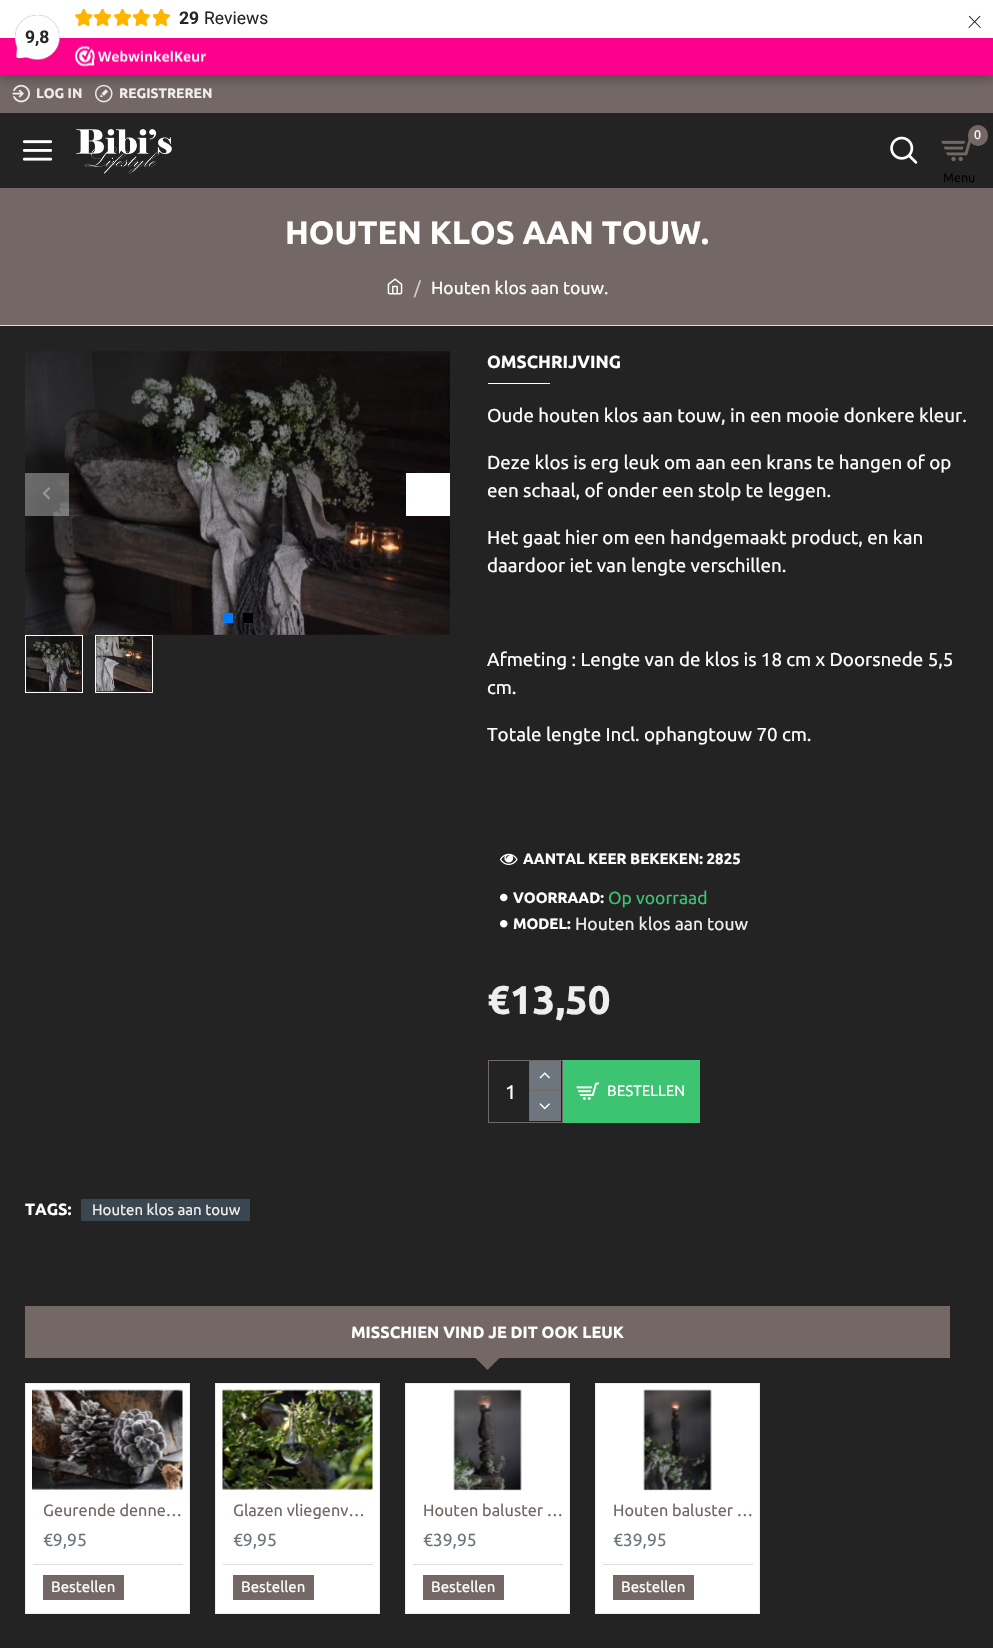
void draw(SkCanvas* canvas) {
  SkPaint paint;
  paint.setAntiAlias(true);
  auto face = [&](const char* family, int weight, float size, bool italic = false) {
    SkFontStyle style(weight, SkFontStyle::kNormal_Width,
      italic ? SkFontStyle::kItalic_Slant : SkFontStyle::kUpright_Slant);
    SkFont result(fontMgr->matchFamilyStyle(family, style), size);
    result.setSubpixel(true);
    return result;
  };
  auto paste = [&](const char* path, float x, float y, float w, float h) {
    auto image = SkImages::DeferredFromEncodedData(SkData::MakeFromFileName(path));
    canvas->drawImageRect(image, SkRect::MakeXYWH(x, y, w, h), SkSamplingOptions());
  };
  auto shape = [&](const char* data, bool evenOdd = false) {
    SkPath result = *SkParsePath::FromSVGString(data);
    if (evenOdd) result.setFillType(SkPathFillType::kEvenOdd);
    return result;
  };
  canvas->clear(0xff232323);
  paint.setColor(0xff736866);
  canvas->drawRect(SkRect::MakeXYWH(0, 75, 993, 38), paint);
  paste("img/6.png", 12, 84, 18, 19);
  paste("img/7.png", 95, 84, 18, 19);
  paint.setColor(0x26000000);
  paint.setMaskFilter(SkMaskFilter::MakeBlur(kNormal_SkBlurStyle, 4));
  canvas->drawRect(SkRect::MakeXYWH(-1, -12, 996, 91), paint);
  paint.setMaskFilter(nullptr);
  paint.setMaskFilter(SkMaskFilter::MakeBlur(kNormal_SkBlurStyle, 6));
  canvas->drawRect(SkRect::MakeXYWH(0, 3, 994, 75), paint);
  paint.setMaskFilter(nullptr);
  paint.setColor(0xffffffff);
  canvas->drawRect(SkRect::MakeXYWH(0, 0, 993, 38), paint);
  paste("img/1.png", 75, 9, 18, 17);
  paste("img/2.png", 94, 9, 17, 17);
  paste("img/2.png", 114, 9, 17, 17);
  paste("img/3.png", 133, 9, 17, 17);
  paste("img/3.png", 153, 9, 17, 17);
  paint.setColor(0xfffe008c);
  canvas->drawRect(SkRect::MakeXYWH(0, 38, 993, 37), paint);
  paste("img/4.png", 15, 15, 45, 45);
  paste("img/5.png", 75, 46, 131, 21);
  paste("img/8.png", 76, 129, 96, 45);
  paste("img/9.png", 22, 140, 31, 21);
  paste("img/10.png", 890, 136, 28, 28);
  paste("img/11.png", 941, 138, 30, 24);
  paint.setColor(0xff736866);
  canvas->drawRoundRect(SkRect::MakeXYWH(968, 125, 20, 21), 10, 10, paint);
  canvas->drawRect(SkRect::MakeXYWH(0, 188, 993, 137), paint);
  paint.setColor(0xffdddddd);
  canvas->drawRect(SkRect::MakeXYWH(0, 325, 993, 1), paint);
  paste("img/12.png", 387, 278, 16, 17);
  paste("img/13.png", 25, 351, 425, 284);
  paint.setColor(0x59ffffff);
  canvas->drawRect(SkRect::MakeXYWH(25, 473, 44, 43), paint);
  paste("img/14.png", 42, 487, 8, 13);
  {
    const struct { float x, y, w, h; SkColor color; } items[] = {
      {406, 473, 44, 43, 0xffffffff},
      {223, 613, 10, 10, 0xff007aff},
      {243, 613, 10, 10, 0xff000000},
    };
    for (auto [x, y, w, h, color] : items) {
      paint.setColor(color);
      canvas->drawRect(SkRect::MakeXYWH(x, y, w, h), paint);
    }
  }
  paint.setStroke(true);
  paint.setStrokeWidth(1);
  paint.setColor(0xffffffff);
  canvas->drawRect(SkRect::MakeXYWH(25.5f, 635.5f, 57, 57), paint);
  paste("img/15.png", 26, 636, 56, 56);
  canvas->drawRect(SkRect::MakeXYWH(95.5f, 635.5f, 57, 57), paint);
  paste("img/16.png", 96, 636, 56, 56);
  paint.setStroke(false);
  canvas->drawRect(SkRect::MakeXYWH(488, 383, 62, 1), paint);
  paste("img/17.png", 500, 853, 18, 12);
  paste("img/18.png", 500, 893, 8, 9);
  paste("img/19.png", 500, 920, 8, 8);
  paint.setStroke(true);
  paint.setColor(0xff736866);
  canvas->drawRect(SkRect::MakeXYWH(488.5f, 1060.5f, 74, 62), paint);
  paint.setStroke(false);
  {
    const struct { float x, y, w, h; SkColor color; } items[] = {
      {529, 1061, 1, 60, 0xff736866},
      {530, 1061, 31, 29, 0xff6d767d},
      {530, 1090, 31, 1, 0xff736866},
    };
    for (auto [x, y, w, h, color] : items) {
      paint.setColor(color);
      canvas->drawRect(SkRect::MakeXYWH(x, y, w, h), paint);
    }
  }
  paste("img/20.png", 539, 1072, 11, 7);
  paint.setColor(0xff6d767d);
  canvas->drawRect(SkRect::MakeXYWH(530, 1091, 31, 30), paint);
  paste("img/21.png", 539, 1103, 11, 7);
  paint.setColor(0xff3cc472);
  canvas->drawRect(SkRect::MakeXYWH(563, 1060, 137, 63), paint);
  paste("img/22.png", 576, 1082, 24, 18);
  paint.setColor(0xff3a4750);
  canvas->drawRect(SkRect::MakeXYWH(81, 1199, 169, 22), paint);
  paint.setColor(0xff736866);
  canvas->drawPath(shape("M475 1357.5H500L487.5 1370Z"), paint);
  canvas->drawRect(SkRect::MakeXYWH(25, 1306, 925, 52), paint);
  paint.setColor(0xffffffff);
  canvas->drawRect(SkRect::MakeXYWH(25.5f, 1383.5f, 164, 230), paint);
  paint.setStroke(true);
  paint.setColor(0xffeeeeee);
  canvas->drawRect(SkRect::MakeXYWH(25.5f, 1383.5f, 164, 230), paint);
  paste("img/23.png", 32, 1389, 151, 101);
  paint.setStroke(false);
  paint.setColor(0xffdddddd);
  canvas->drawRect(SkRect::MakeXYWH(33, 1564, 150, 1), paint);
  paint.setColor(0xff736866);
  canvas->drawRect(SkRect::MakeXYWH(43, 1575, 81, 25), paint);
  paint.setColor(0xffffffff);
  canvas->drawRect(SkRect::MakeXYWH(215.5f, 1383.5f, 164, 230), paint);
  paint.setStroke(true);
  paint.setColor(0xffeeeeee);
  canvas->drawRect(SkRect::MakeXYWH(215.5f, 1383.5f, 164, 230), paint);
  paste("img/24.png", 222, 1389, 151, 101);
  paint.setStroke(false);
  paint.setColor(0xffdddddd);
  canvas->drawRect(SkRect::MakeXYWH(223, 1564, 150, 1), paint);
  paint.setColor(0xff736866);
  canvas->drawRect(SkRect::MakeXYWH(233, 1575, 81, 25), paint);
  paint.setColor(0xffffffff);
  canvas->drawRect(SkRect::MakeXYWH(405.5f, 1383.5f, 164, 230), paint);
  paint.setStroke(true);
  paint.setColor(0xffeeeeee);
  canvas->drawRect(SkRect::MakeXYWH(405.5f, 1383.5f, 164, 230), paint);
  paste("img/25.png", 452, 1389, 70, 102);
  paint.setStroke(false);
  paint.setColor(0xffdddddd);
  canvas->drawRect(SkRect::MakeXYWH(413, 1564, 150, 1), paint);
  paint.setColor(0xff736866);
  canvas->drawRect(SkRect::MakeXYWH(423, 1575, 81, 25), paint);
  paint.setColor(0xffffffff);
  canvas->drawRect(SkRect::MakeXYWH(595.5f, 1383.5f, 164, 230), paint);
  paint.setStroke(true);
  paint.setColor(0xffeeeeee);
  canvas->drawRect(SkRect::MakeXYWH(595.5f, 1383.5f, 164, 230), paint);
  paste("img/26.png", 642, 1389, 70, 102);
  paint.setStroke(false);
  paint.setColor(0xffdddddd);
  canvas->drawRect(SkRect::MakeXYWH(603, 1564, 150, 1), paint);
  paint.setColor(0xff736866);
  canvas->drawRect(SkRect::MakeXYWH(613, 1575, 81, 25), paint);
  auto f0 = face("Roboto", 700, 17.5f);
  paint.setColor(0xff272626);
  canvas->drawString("29", 179, 24, f0, paint);
  auto f1 = face("Roboto", 400, 17.5f);
  canvas->drawString("Reviews", 204, 24, f1, paint);
  auto f2 = face("Roboto", 100, 30);
  canvas->drawString("×", 967, 28, f2, paint);
  canvas->drawString("9,8", 25, 43, f0, paint);
  auto f3 = face("Ubuntu", 700, 13.75f);
  paint.setColor(0xffeeeeee);
  canvas->drawString("LOG IN", 36, 98, f3, paint);
  canvas->drawString("REGISTREREN", 119, 98, f3, paint);
  auto f4 = face("Ubuntu", 400, 12.5f);
  paint.setColor(0xffffffff);
  canvas->drawString("0", 974, 139, f4, paint);
  paint.setColor(0xff000000);
  canvas->drawString("Menu", 943, 182, f4, paint);
  auto f5 = face("Ubuntu", 700, 32.5f);
  paint.setColor(0xffffffff);
  canvas->drawString("HOUTEN KLOS AAN TOUW.", 285, 244, f5, paint);
  auto f6 = face("Ubuntu", 400, 17.5f);
  paint.setColor(0xffcccccc);
  canvas->drawString("/", 414, 294, f6, paint);
  paint.setColor(0xffffffff);
  canvas->drawString("Houten klos aan touw.", 431, 294, f6, paint);
  auto f7 = face("Ubuntu", 700, 17.5f);
  canvas->drawString("OMSCHRIJVING", 487, 368, f7, paint);
  auto f8 = face("Ubuntu", 400, 18.75f);
  {
    const struct { const char* s; float x, y; } items[] = {
      {"Oude houten klos aan touw, in een mooie donkere kleur.", 487, 422},
      {"Deze klos is erg leuk om aan een krans te hangen of op", 487, 469},
      {"een schaal, of onder een stolp te leggen.", 487, 497},
      {"Het gaat hier om een handgemaakt product, en kan", 487, 544},
      {"daardoor iet van lengte verschillen.", 487, 572},
      {"Afmeting : Lengte van de klos is 18 cm x Doorsnede 5,5", 487, 666},
      {"cm.", 487, 694},
      {"Totale lengte Incl. ophangtouw 70 cm.", 487, 741},
    };
    for (auto [s, x, y] : items) {
      canvas->drawString(s, x, y, f8, paint);
    }
  }
  auto f9 = face("Ubuntu", 700, 15);
  canvas->drawString("AANTAL KEER BEKEKEN: 2825", 523, 864, f9, paint);
  canvas->drawString("VOORRAAD:", 513, 903, f9, paint);
  paint.setColor(0xff3cc472);
  canvas->drawString("Op voorraad", 608, 904, f6, paint);
  paint.setColor(0xffffffff);
  canvas->drawString("MODEL:", 513, 929, f9, paint);
  paint.setColor(0xffeeeeee);
  canvas->drawString("Houten klos aan touw", 575, 930, f6, paint);
  auto f10 = face("Ubuntu", 700, 40);
  canvas->drawString("€13,50", 487, 1014, f10, paint);
  auto f11 = face("Ubuntu", 400, 20);
  paint.setColor(0xffffffff);
  canvas->drawString("1", 505, 1099, f11, paint);
  auto f12 = face("Ubuntu", 400, 15);
  canvas->drawString("BESTELLEN", 607, 1096, f12, paint);
  auto f13 = face("Ubuntu", 700, 16.25f);
  canvas->drawString("TAGS:", 25, 1215, f13, paint);
  paint.setColor(0xffeeeeee);
  canvas->drawString("Houten klos aan touw", 92, 1215, f12, paint);
  paint.setColor(0xffffffff);
  canvas->drawString("MISSCHIEN VIND JE DIT OOK LEUK", 351, 1338, f13, paint);
  auto f14 = face("Ubuntu", 400, 16.25f);
  paint.setColor(0xff736866);
  canvas->drawString("Geurende denne…", 43, 1516, f14, paint);
  paint.setColor(0xff6d767d);
  canvas->drawString("€9,95", 43, 1546, f6, paint);
  paint.setColor(0xffffffff);
  canvas->drawString("Bestellen", 51, 1592, f12, paint);
  paint.setColor(0xff736866);
  canvas->drawString("Glazen vliegenv…", 233, 1516, f14, paint);
  paint.setColor(0xff6d767d);
  canvas->drawString("€9,95", 233, 1546, f6, paint);
  paint.setColor(0xffffffff);
  canvas->drawString("Bestellen", 241, 1592, f12, paint);
  paint.setColor(0xff736866);
  canvas->drawString("Houten baluster …", 423, 1516, f14, paint);
  paint.setColor(0xff6d767d);
  canvas->drawString("€39,95", 423, 1546, f6, paint);
  paint.setColor(0xffffffff);
  canvas->drawString("Bestellen", 431, 1592, f12, paint);
  paint.setColor(0xff736866);
  canvas->drawString("Houten baluster …", 613, 1516, f14, paint);
  paint.setColor(0xff6d767d);
  canvas->drawString("€39,95", 613, 1546, f6, paint);
  paint.setColor(0xffffffff);
  canvas->drawString("Bestellen", 621, 1592, f12, paint);
}
